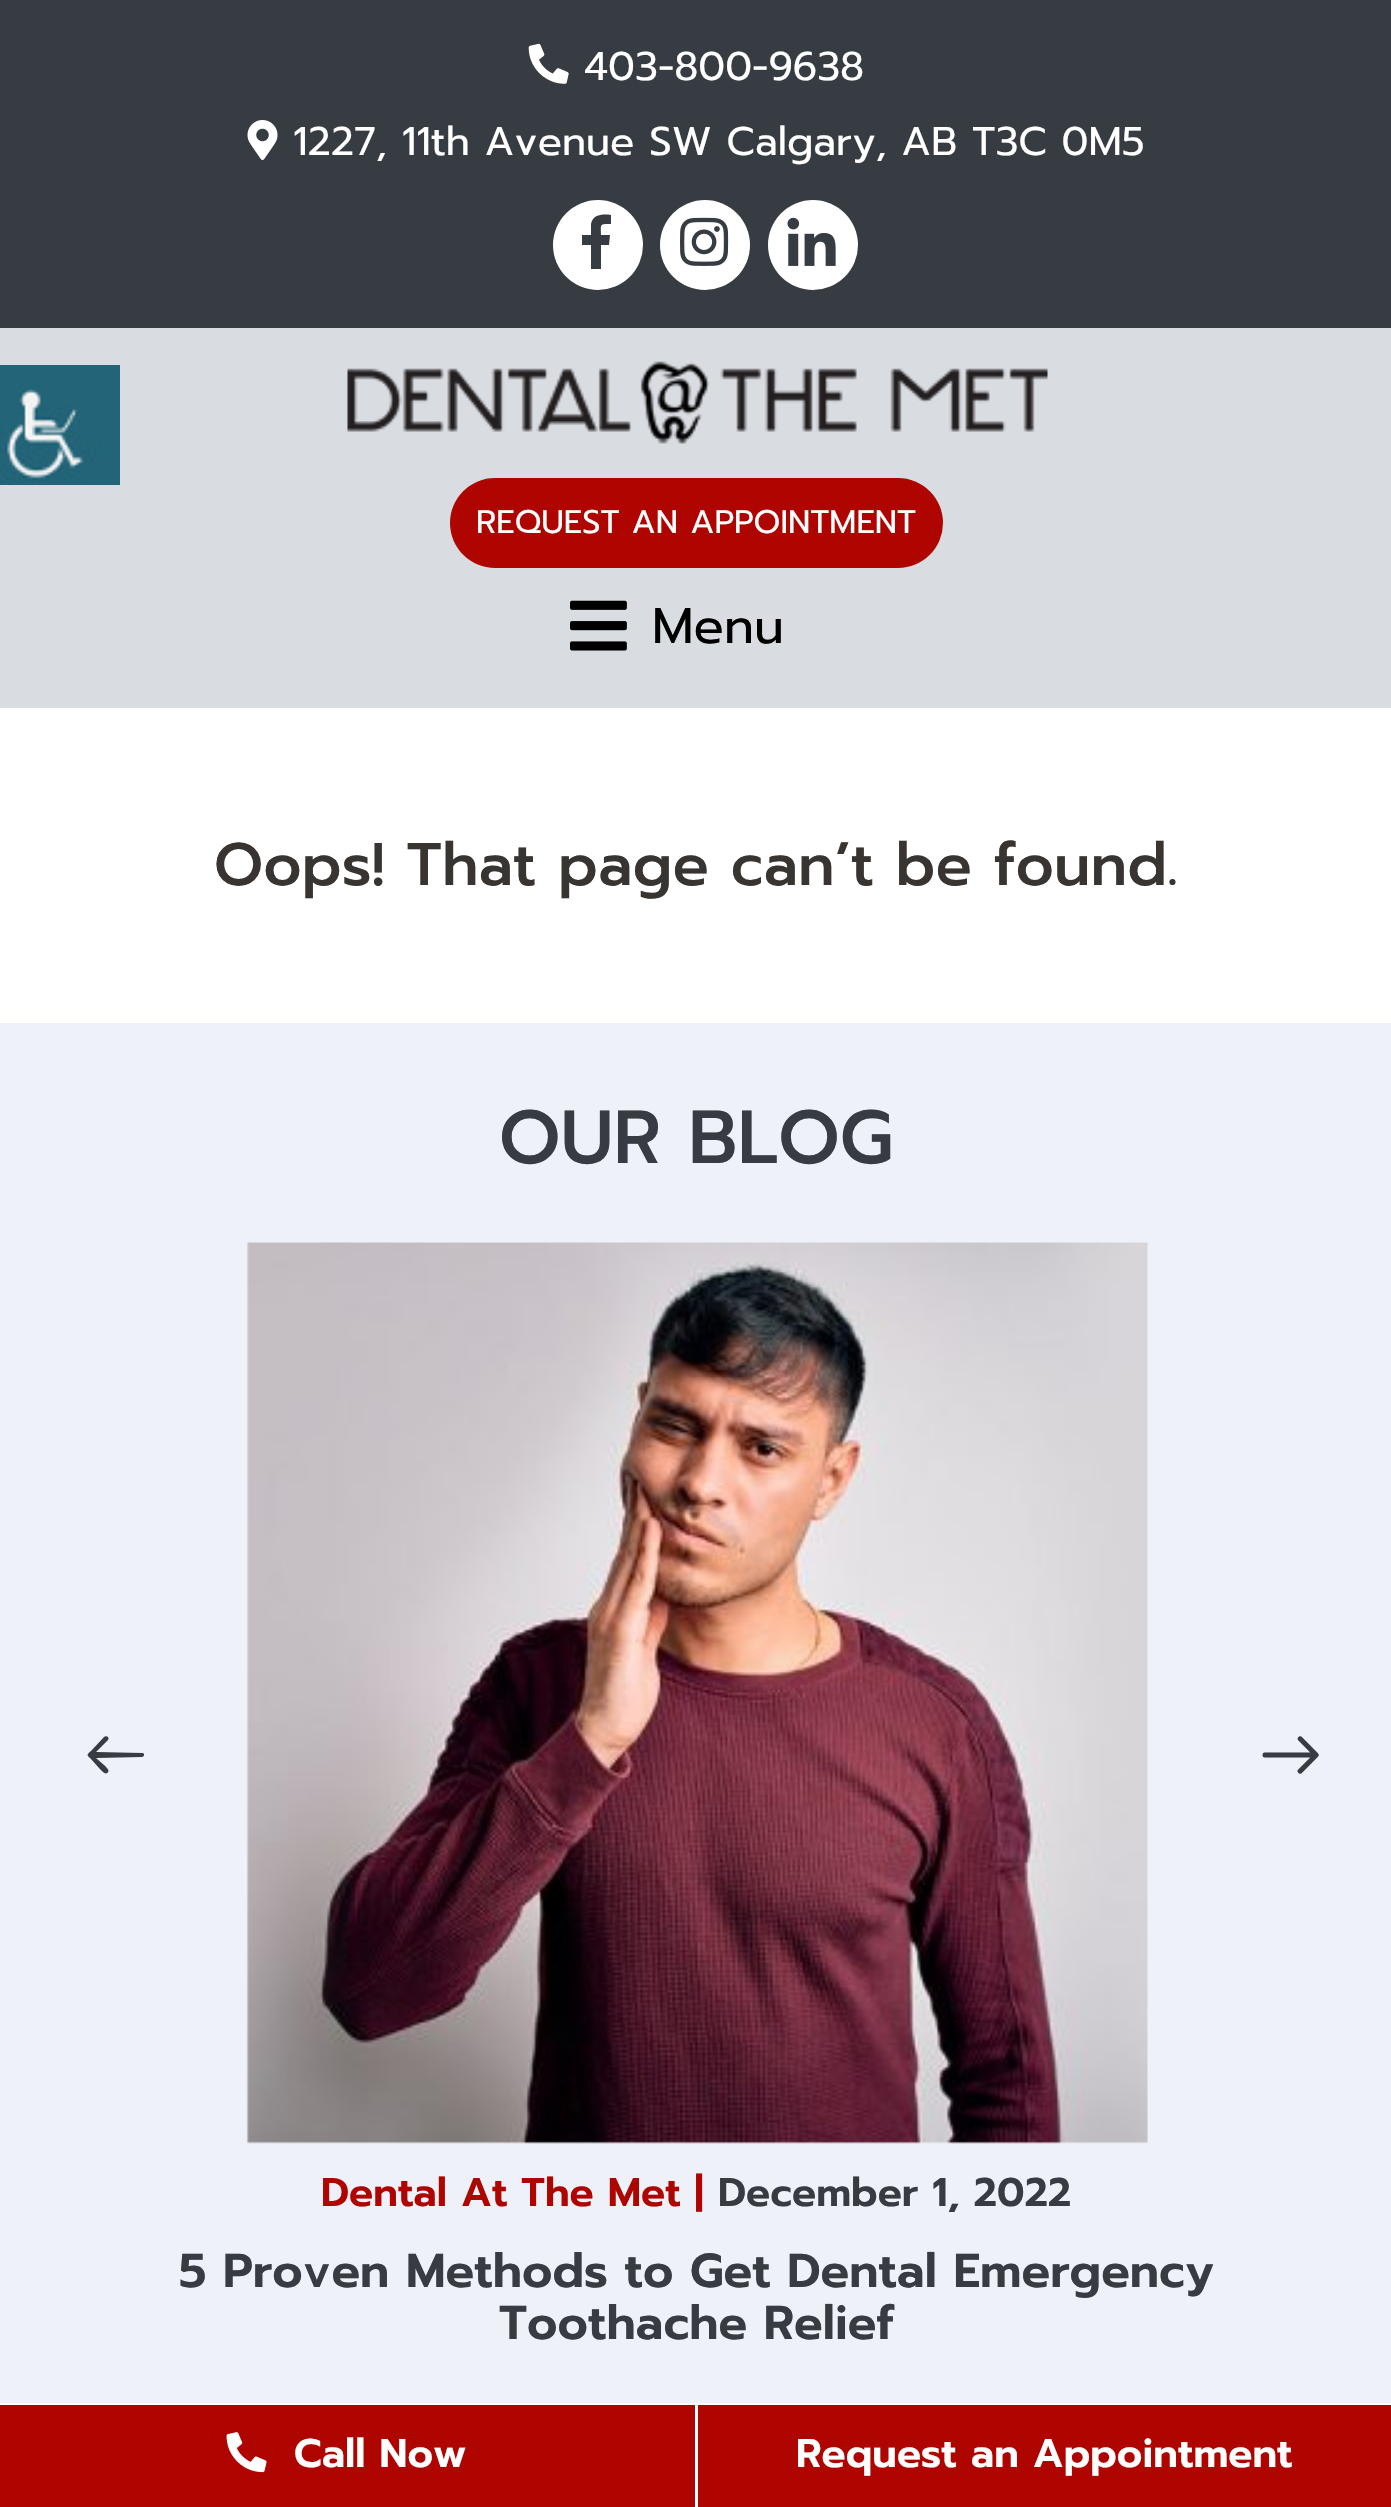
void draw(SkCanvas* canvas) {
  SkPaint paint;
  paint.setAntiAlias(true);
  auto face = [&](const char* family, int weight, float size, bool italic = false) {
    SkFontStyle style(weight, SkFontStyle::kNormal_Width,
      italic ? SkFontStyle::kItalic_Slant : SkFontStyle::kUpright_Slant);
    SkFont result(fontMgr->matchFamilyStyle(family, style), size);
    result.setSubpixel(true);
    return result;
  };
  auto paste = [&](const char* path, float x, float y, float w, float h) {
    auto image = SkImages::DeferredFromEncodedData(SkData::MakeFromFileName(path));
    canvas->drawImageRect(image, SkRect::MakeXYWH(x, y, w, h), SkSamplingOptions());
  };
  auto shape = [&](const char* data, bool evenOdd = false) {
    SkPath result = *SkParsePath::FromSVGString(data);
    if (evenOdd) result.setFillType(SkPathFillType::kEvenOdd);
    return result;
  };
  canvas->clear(0xffffffff);
  paint.setColor(0xffd9dce1);
  canvas->drawRect(SkRect::MakeXYWH(0, 328, 1391, 380), paint);
  paste("img/1.png", 0, 365, 120, 120);
  paint.setColor(0xff363c41);
  canvas->drawRect(SkRect::MakeXYWH(0, 0, 1391, 328), paint);
  paste("img/2.png", 528, 43, 41, 41);
  paste("img/3.png", 247, 120, 31, 40);
  paint.setColor(0xffffffff);
  canvas->drawCircle(598, 245, 45, paint);
  paint.setColor(0xff363c41);
  canvas->drawPath(shape("M591 269V245H582V235H591V224C593 214 603 214 611 215V224C599 224 601 224 601 235H610L609 245H601V269Z"), paint);
  paint.setColor(0xffffffff);
  canvas->drawCircle(705, 245, 45, paint);
  paste("img/4.png", 680, 217, 49, 49);
  canvas->drawCircle(813, 245, 45, paint);
  paste("img/5.png", 787, 217, 49, 49);
  paste("img/6.png", 347, 361, 701, 83);
  paint.setColor(0xffae0500);
  canvas->drawRoundRect(SkRect::MakeXYWH(450, 478, 493, 90), 45, 45, paint);
  paste("img/7.png", 570, 600, 57, 51);
  paint.setColor(0xffeff1f8);
  canvas->drawRect(SkRect::MakeXYWH(0, 1023, 1391, 1380), paint);
  paint.setColor(0xff363c41);
  canvas->drawPath(shape("M104 1737C106 1735 110 1737 108 1740L96 1752L143 1753C145 1754 144 1757 142 1757L96 1758L104 1765C106 1767 111 1771 107 1773C105 1775 100 1769 99 1768L91 1759C87 1755 86 1755 91 1751Z"), paint);
  paste("img/8.png", 1262, 1736, 57, 38);
  paste("img/9.png", 246, 1242, 902, 902);
  paint.setColor(0xffae0500);
  canvas->drawRect(SkRect::MakeXYWH(0, 2405, 695, 102), paint);
  paste("img/10.png", 226, 2432, 41, 41);
  canvas->drawRect(SkRect::MakeXYWH(698, 2405, 693, 102), paint);
  auto f0 = face("Prompt", 400, 40);
  paint.setColor(0xffffffff);
  canvas->drawString("403-800-9638", 584, 80, f0, paint);
  canvas->drawString("1227, 11th Avenue SW Calgary, AB T3C 0M5", 293, 155, f0, paint);
  auto f1 = face("Prompt", 400, 32.5f);
  canvas->drawString("REQUEST AN APPOINTMENT", 476, 533, f1, paint);
  auto f2 = face("Prompt", 400, 50);
  paint.setColor(0xff000000);
  canvas->drawString("Menu", 652, 643, f2, paint);
  auto f3 = face("Prompt", 500, 60);
  paint.setColor(0xff373431);
  canvas->drawString("Oops! That page can’t be found.", 214, 885, f3, paint);
  auto f4 = face("Prompt", 500, 75);
  paint.setColor(0xff363c41);
  canvas->drawString("OUR BLOG", 499, 1163, f4, paint);
  auto f5 = face("Prompt", 600, 40);
  paint.setColor(0xffae0500);
  canvas->drawString("Dental At The Met |", 321, 2206, f5, paint);
  paint.setColor(0xff363c41);
  canvas->drawString("December 1, 2022", 718, 2206, f5, paint);
  auto f6 = face("Prompt", 600, 47.5f);
  canvas->drawString("5 Proven Methods to Get Dental Emergency", 179, 2287, f6, paint);
  canvas->drawString("Toothache Relief", 499, 2339, f6, paint);
  paint.setColor(0xffffffff);
  canvas->drawString("Call Now", 294, 2467, f5, paint);
  canvas->drawString("Request an Appointment", 796, 2467, f5, paint);
}
